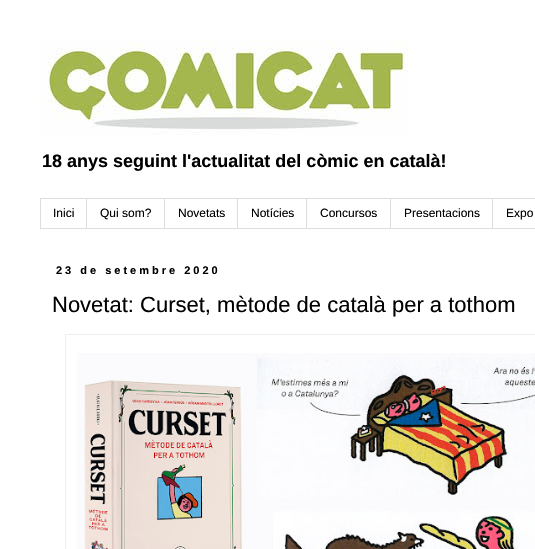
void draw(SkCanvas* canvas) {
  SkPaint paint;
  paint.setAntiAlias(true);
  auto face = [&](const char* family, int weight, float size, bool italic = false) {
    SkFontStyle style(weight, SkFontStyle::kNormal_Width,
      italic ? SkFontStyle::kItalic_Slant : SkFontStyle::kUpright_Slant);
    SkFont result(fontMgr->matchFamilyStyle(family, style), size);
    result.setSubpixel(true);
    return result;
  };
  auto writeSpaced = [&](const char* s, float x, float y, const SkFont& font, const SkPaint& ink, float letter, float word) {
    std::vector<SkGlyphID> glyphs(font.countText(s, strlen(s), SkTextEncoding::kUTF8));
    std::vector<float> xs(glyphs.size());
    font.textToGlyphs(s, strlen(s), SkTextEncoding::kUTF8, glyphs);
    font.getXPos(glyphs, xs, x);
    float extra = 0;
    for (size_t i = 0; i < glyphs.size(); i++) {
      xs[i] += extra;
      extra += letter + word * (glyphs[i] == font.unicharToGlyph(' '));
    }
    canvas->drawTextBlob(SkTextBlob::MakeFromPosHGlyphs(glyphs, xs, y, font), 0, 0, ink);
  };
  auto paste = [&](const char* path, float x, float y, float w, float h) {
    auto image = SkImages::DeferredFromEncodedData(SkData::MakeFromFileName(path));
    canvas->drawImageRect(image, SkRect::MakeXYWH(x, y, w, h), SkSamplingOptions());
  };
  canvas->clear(0xffffffff);
  paste("img/1.png", 40, 40, 368, 95);
  paint.setStroke(true);
  paint.setStrokeWidth(1);
  paint.setColor(0xffdddddd);
  canvas->drawRect(SkRect::MakeXYWH(40.5f, 198.5f, 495, 30), paint);
  paint.setStroke(false);
  {
    const struct { float x, y, w, h; SkColor color; } items[] = {
      {86, 199, 1, 29, 0xffdddddd},
      {164, 199, 1, 29, 0xffdddddd},
      {237, 199, 1, 29, 0xffdddddd},
      {306, 199, 1, 29, 0xffdddddd},
      {390, 199, 1, 29, 0xffdddddd},
      {492, 199, 1, 29, 0xffdddddd},
    };
    for (auto [x, y, w, h, color] : items) {
      paint.setColor(color);
      canvas->drawRect(SkRect::MakeXYWH(x, y, w, h), paint);
    }
  }
  paint.setStroke(true);
  paint.setColor(0xffeeeeee);
  canvas->drawRect(SkRect::MakeXYWH(65.5f, 334.5f, 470, 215), paint);
  paste("img/2.png", 77, 353, 458, 196);
  auto f0 = face("Liberation Sans", 700, 18);
  paint.setStroke(false);
  paint.setColor(0xff000000);
  canvas->drawString("18 anys seguint l'actualitat del còmic en català!", 42, 167, f0, paint);
  auto f1 = face("Liberation Sans", 400, 12);
  {
    const struct { const char* s; float x, y; } items[] = {
      {"Inici", 53, 217},
      {"Qui som?", 100, 217},
      {"Novetats", 178, 217},
      {"Notícies", 251, 217},
      {"Concursos", 320, 217},
      {"Presentacions", 404, 217},
      {"Expo", 506, 217},
    };
    for (auto [s, x, y] : items) {
      canvas->drawString(s, x, y, f1, paint);
    }
  }
  auto f2 = face("Liberation Sans", 700, 11);
  writeSpaced("23 de setembre 2020", 56, 274, f2, paint, 3, 0);
  auto f3 = face("Liberation Sans", 400, 22);
  canvas->drawString("Novetat: Curset, mètode de català per a tothom", 52, 312, f3, paint);
}
